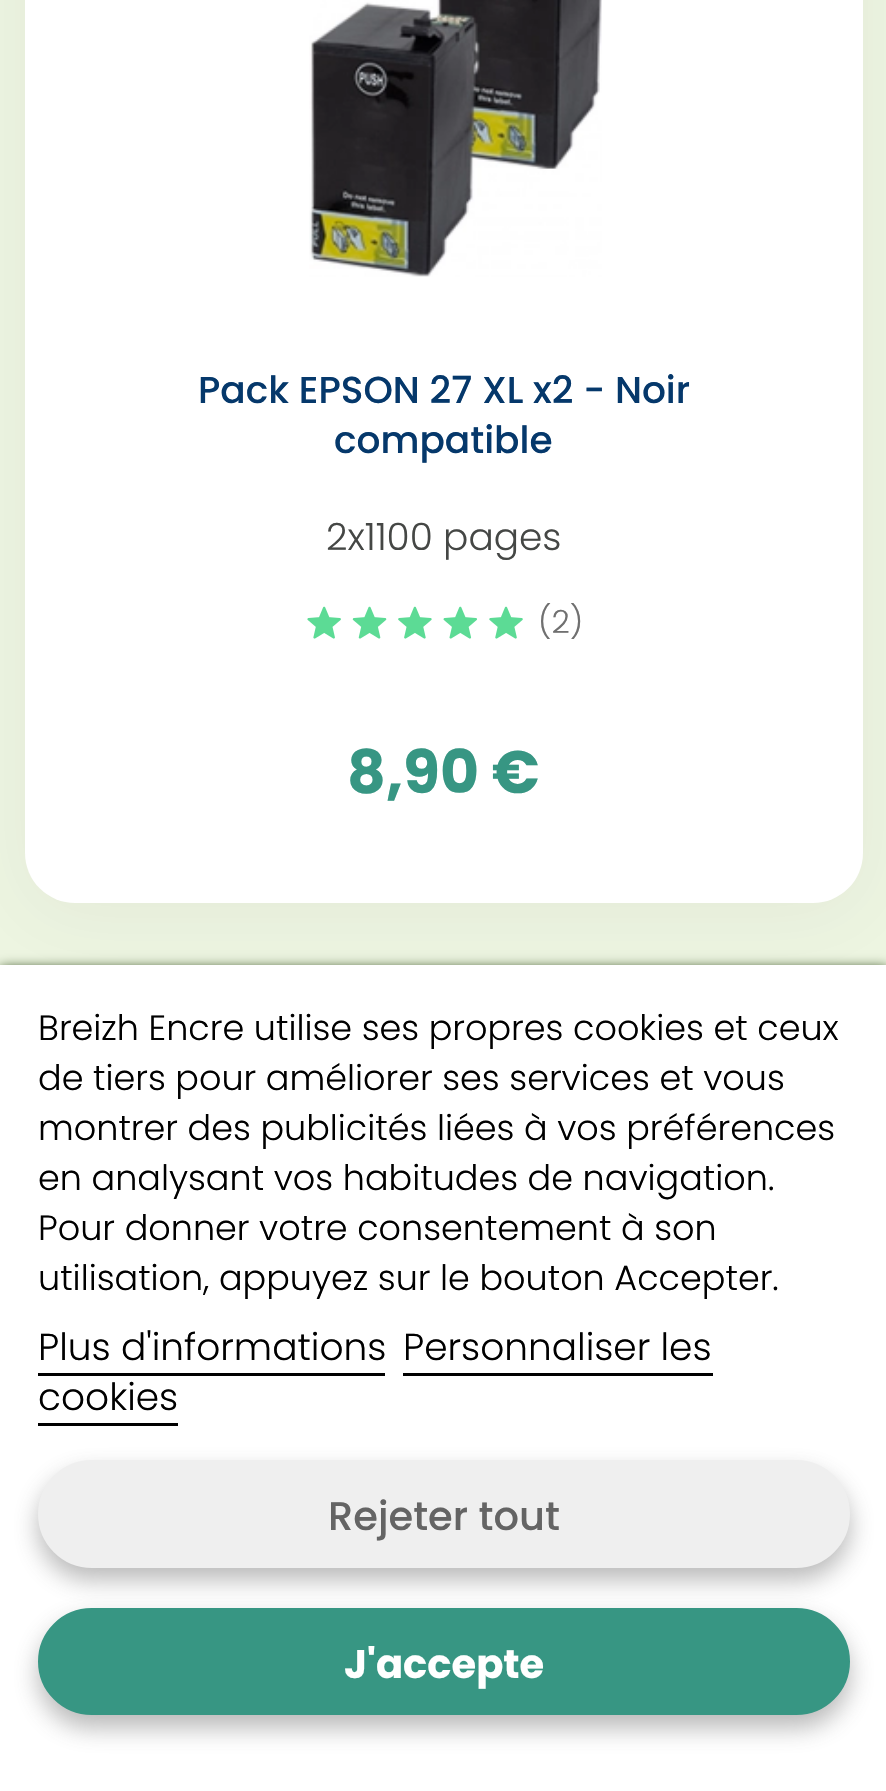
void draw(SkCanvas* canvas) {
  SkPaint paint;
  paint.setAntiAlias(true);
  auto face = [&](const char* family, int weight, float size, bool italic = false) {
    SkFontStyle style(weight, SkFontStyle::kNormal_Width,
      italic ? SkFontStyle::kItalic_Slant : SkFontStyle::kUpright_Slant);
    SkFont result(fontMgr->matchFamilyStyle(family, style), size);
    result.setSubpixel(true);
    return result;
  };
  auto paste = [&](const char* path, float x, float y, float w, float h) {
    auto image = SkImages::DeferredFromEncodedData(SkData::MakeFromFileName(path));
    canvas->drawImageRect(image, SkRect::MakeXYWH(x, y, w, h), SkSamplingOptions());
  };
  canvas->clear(0xffedf5e1);
  paint.setColor(0x12505050);
  paint.setMaskFilter(SkMaskFilter::MakeBlur(kNormal_SkBlurStyle, 37.5f));
  canvas->drawRoundRect(SkRect::MakeXYWH(25, -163, 838, 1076), 50, 50, paint);
  paint.setMaskFilter(nullptr);
  paint.setColor(0xffffffff);
  canvas->drawRoundRect(SkRect::MakeXYWH(25, -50, 838, 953), 50, 50, paint);
  paste("img/1.png", 309, 0, 293, 277);
  paste("img/2.png", 307, 606, 216, 33);
  paint.setColor(0xff163300);
  paint.setMaskFilter(SkMaskFilter::MakeBlur(kNormal_SkBlurStyle, 6));
  canvas->drawRect(SkRect::MakeXYWH(0, 968, 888, 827), paint);
  paint.setMaskFilter(nullptr);
  {
    const struct { float x, y, w, h; SkColor color; } items[] = {
      {0, 965, 886, 826, 0xffffffff},
      {38, 1373, 347, 3, 0xff000000},
      {403, 1373, 310, 3, 0xff000000},
      {38, 1423, 140, 3, 0xff000000},
    };
    for (auto [x, y, w, h, color] : items) {
      paint.setColor(color);
      canvas->drawRect(SkRect::MakeXYWH(x, y, w, h), paint);
    }
  }
  paint.setColor(0x66505050);
  paint.setMaskFilter(SkMaskFilter::MakeBlur(kNormal_SkBlurStyle, 12.5f));
  canvas->drawRoundRect(SkRect::MakeXYWH(38, 1473, 812, 107), 53.5f, 53.5f, paint);
  paint.setMaskFilter(nullptr);
  paint.setColor(0xffefefef);
  canvas->drawRoundRect(SkRect::MakeXYWH(40.5f, 1462.5f, 807, 103), 51.5f, 51.5f, paint);
  paint.setStroke(true);
  paint.setStrokeWidth(5);
  canvas->drawRoundRect(SkRect::MakeXYWH(40.5f, 1462.5f, 807, 103), 51.5f, 51.5f, paint);
  paint.setStroke(false);
  paint.setColor(0x66505050);
  paint.setMaskFilter(SkMaskFilter::MakeBlur(kNormal_SkBlurStyle, 12.5f));
  canvas->drawRoundRect(SkRect::MakeXYWH(38, 1620, 812, 108), 54, 54, paint);
  paint.setMaskFilter(nullptr);
  paint.setColor(0xff379683);
  canvas->drawRoundRect(SkRect::MakeXYWH(40.5f, 1610.5f, 807, 102), 51, 51, paint);
  paint.setStroke(true);
  canvas->drawRoundRect(SkRect::MakeXYWH(40.5f, 1610.5f, 807, 102), 51, 51, paint);
  auto f0 = face("Poppins", 500, 37.5f);
  paint.setStroke(false);
  paint.setColor(0xff05386b);
  canvas->drawString("Pack EPSON 27 XL x2 - Noir", 198, 403, f0, paint);
  canvas->drawString("compatible", 334, 453, f0, paint);
  auto f1 = face("Poppins", 300, 37.5f);
  paint.setColor(0xff454745);
  canvas->drawString("2x1100 pages", 326, 550, f1, paint);
  auto f2 = face("Poppins", 300, 32);
  paint.setColor(0xff707070);
  canvas->drawString("(2)", 538, 633, f2, paint);
  auto f3 = face("Poppins", 700, 60);
  paint.setColor(0xff379683);
  canvas->drawString("8,90 €", 347, 793, f3, paint);
  auto f4 = face("Poppins", 300, 35);
  paint.setColor(0xff000000);
  {
    const struct { const char* s; float x, y; } items[] = {
      {"Breizh Encre utilise ses propres cookies et ceux", 38, 1040},
      {"de tiers pour améliorer ses services et vous", 38, 1090},
      {"montrer des publicités liées à vos préférences", 38, 1140},
      {"en analysant vos habitudes de navigation.", 38, 1190},
      {"Pour donner votre consentement à son", 38, 1240},
      {"utilisation, appuyez sur le bouton Accepter.", 38, 1290},
    };
    for (auto [s, x, y] : items) {
      canvas->drawString(s, x, y, f4, paint);
    }
  }
  {
    const struct { const char* s; float x, y; } items[] = {
      {"Plus d'informations", 38, 1360},
      {"Personnaliser les", 403, 1360},
      {"cookies", 38, 1410},
    };
    for (auto [s, x, y] : items) {
      canvas->drawString(s, x, y, f1, paint);
    }
  }
  auto f5 = face("Poppins", 500, 40);
  paint.setColor(0xff646464);
  canvas->drawString("Rejeter tout", 328, 1530, f5, paint);
  auto f6 = face("Poppins", 700, 40);
  paint.setColor(0xffffffff);
  canvas->drawString("J'accepte", 344, 1678, f6, paint);
}
